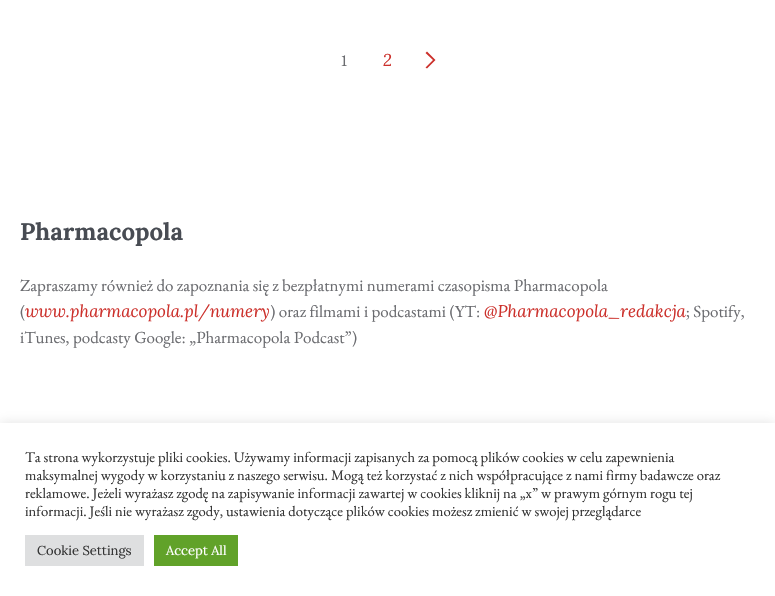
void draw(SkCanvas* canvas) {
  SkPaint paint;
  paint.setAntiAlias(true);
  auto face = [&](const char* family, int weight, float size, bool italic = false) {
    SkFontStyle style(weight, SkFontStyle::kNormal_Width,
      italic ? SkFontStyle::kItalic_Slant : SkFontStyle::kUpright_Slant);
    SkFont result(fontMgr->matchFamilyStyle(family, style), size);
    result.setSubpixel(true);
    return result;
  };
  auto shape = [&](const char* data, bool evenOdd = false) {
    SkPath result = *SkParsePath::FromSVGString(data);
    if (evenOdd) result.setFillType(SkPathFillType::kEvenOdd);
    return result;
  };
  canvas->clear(0xffffffff);
  paint.setColor(0xffcc302b);
  canvas->drawPath(shape("M435.5 60L427 51.5L425.5 53L433 60L425.5 67.5L427 68.5Z"), paint);
  paint.setColor(0x4dacabab);
  paint.setMaskFilter(SkMaskFilter::MakeBlur(kNormal_SkBlurStyle, 5));
  canvas->drawRect(SkRect::MakeXYWH(0, 422, 775, 173), paint);
  paint.setMaskFilter(nullptr);
  {
    const struct { float x, y, w, h; SkColor color; } items[] = {
      {0, 423, 775, 173, 0xffffffff},
      {25, 535, 119, 31, 0xffdedfe0},
      {154, 535, 84, 31, 0xff61a229},
    };
    for (auto [x, y, w, h, color] : items) {
      paint.setColor(color);
      canvas->drawRect(SkRect::MakeXYWH(x, y, w, h), paint);
    }
  }
  auto f0 = face("EB Garamond", 400, 17);
  paint.setColor(0xff6b6c70);
  canvas->drawString("1", 340, 66, f0, paint);
  auto f1 = face("Lora", 400, 17, true);
  paint.setColor(0xffcc302b);
  canvas->drawString("2", 383, 66, f1, paint);
  auto f2 = face("Lora", 700, 24);
  paint.setColor(0xff484c53);
  canvas->drawString("Pharmacopola", 20, 240, f2, paint);
  paint.setColor(0xff6b6c70);
  canvas->drawString("Zapraszamy również do zapoznania się z bezpłatnymi numerami czasopisma Pharmacopola", 20, 291, f0, paint);
  canvas->drawString("(", 20, 317, f0, paint);
  paint.setColor(0xffcc302b);
  canvas->drawString("www.pharmacopola.pl/numery", 25, 317, f1, paint);
  paint.setColor(0xff6b6c70);
  canvas->drawString(") oraz filmami i podcastami (YT:", 270, 317, f0, paint);
  paint.setColor(0xffcc302b);
  canvas->drawString("@Pharmacopola_redakcja", 484, 317, f1, paint);
  paint.setColor(0xff6b6c70);
  canvas->drawString("; Spotify,", 686, 317, f0, paint);
  canvas->drawString("iTunes, podcasty Google: „Pharmacopola Podcast”)", 20, 343, f0, paint);
  auto f3 = face("EB Garamond", 400, 14.65f);
  paint.setColor(0xff333333);
  {
    const struct { const char* s; float x, y; } items[] = {
      {"Ta strona wykorzystuje pliki cookies. Używamy informacji zapisanych za pomocą plików cookies w celu zapewnienia", 25, 462},
      {"maksymalnej wygody w korzystaniu z naszego serwisu. Mogą też korzystać z nich współpracujące z nami firmy badawcze oraz", 25, 480},
      {"reklamowe. Jeżeli wyrażasz zgodę na zapisywanie informacji zawartej w cookies kliknij na „x” w prawym górnym rogu tej", 25, 498},
      {"informacji. Jeśli nie wyrażasz zgody, ustawienia dotyczące plików cookies możesz zmienić w swojej przeglądarce", 25, 516},
    };
    for (auto [s, x, y] : items) {
      canvas->drawString(s, x, y, f3, paint);
    }
  }
  auto f4 = face("Lora", 400, 13);
  canvas->drawString("Cookie Settings", 37, 555, f4, paint);
  paint.setColor(0xffffffff);
  canvas->drawString("Accept All", 166, 555, f4, paint);
}
